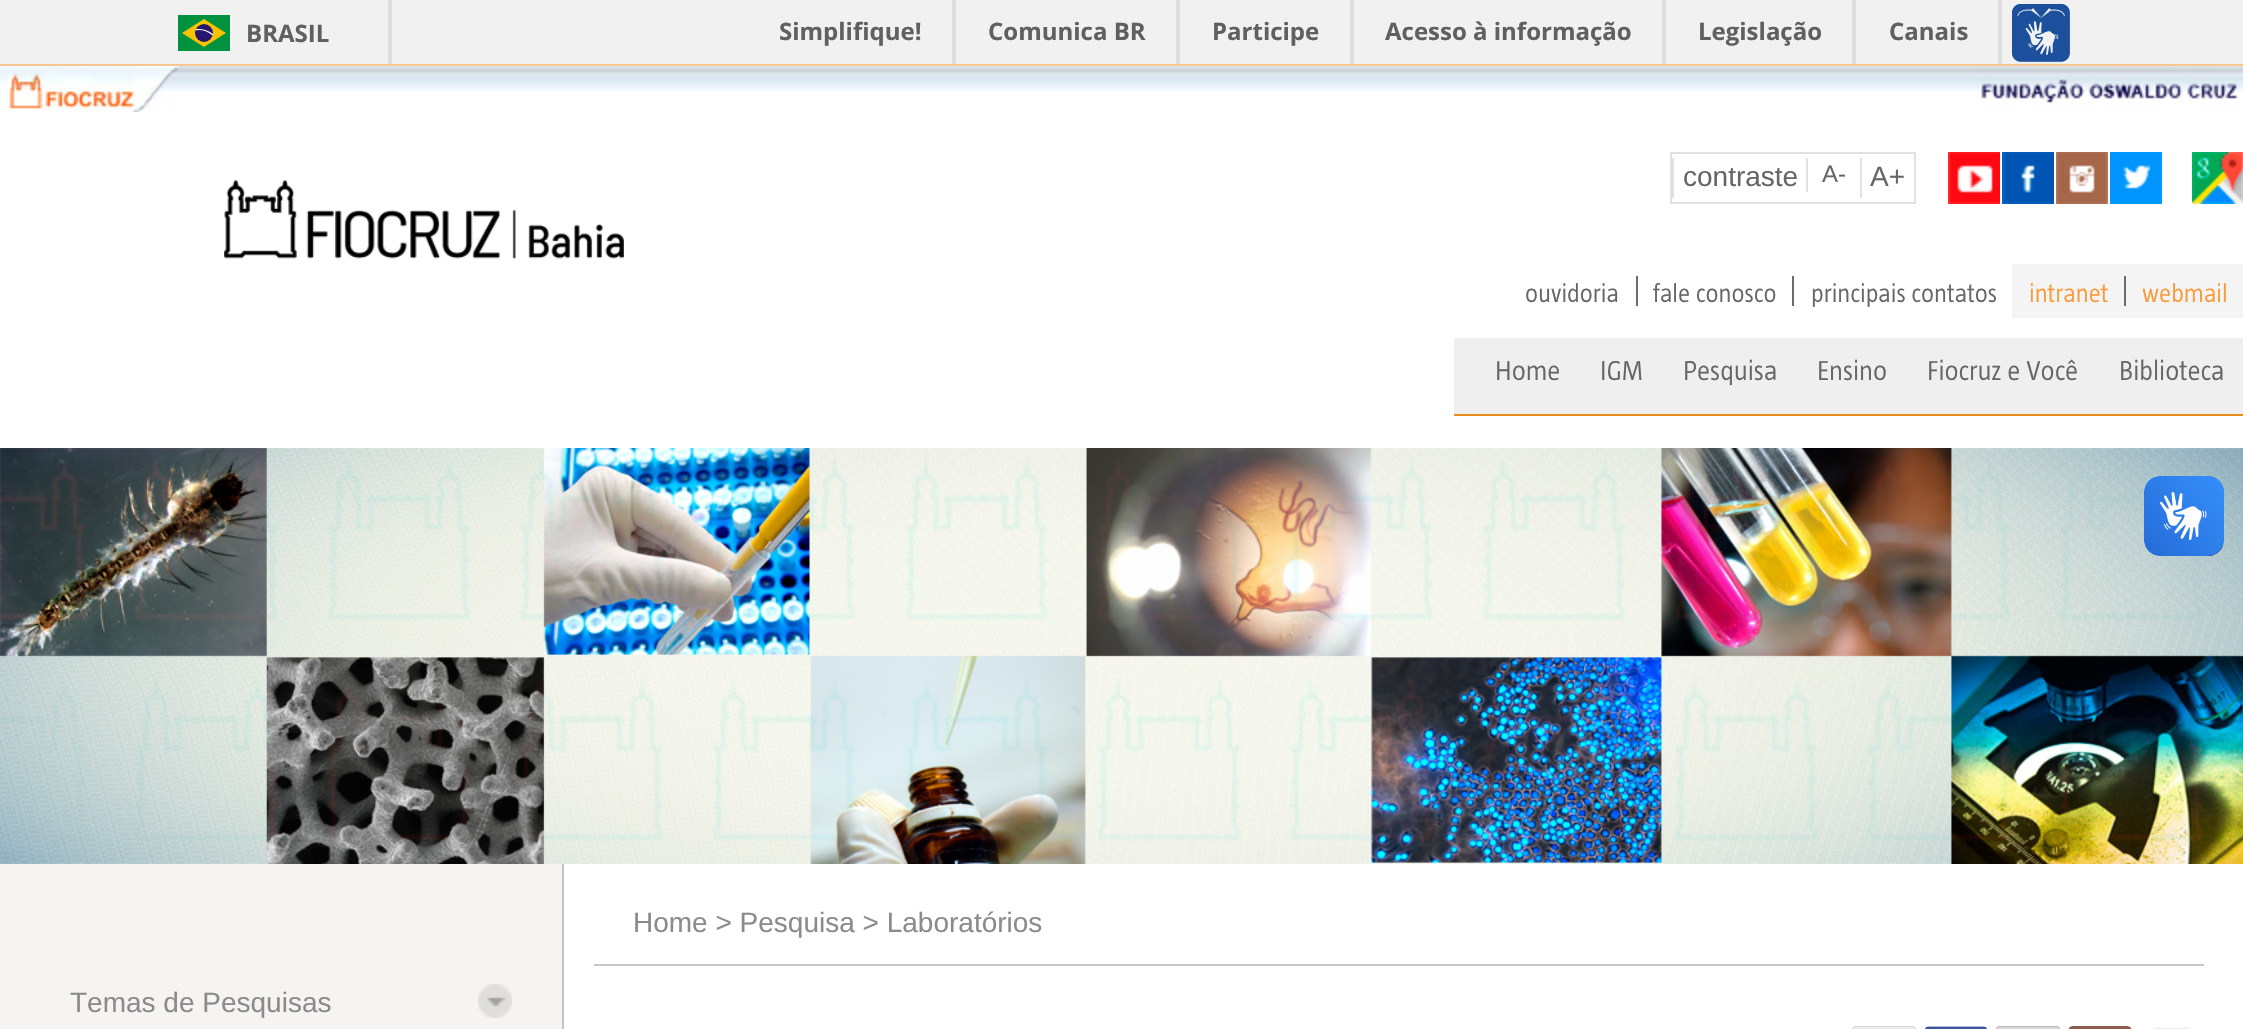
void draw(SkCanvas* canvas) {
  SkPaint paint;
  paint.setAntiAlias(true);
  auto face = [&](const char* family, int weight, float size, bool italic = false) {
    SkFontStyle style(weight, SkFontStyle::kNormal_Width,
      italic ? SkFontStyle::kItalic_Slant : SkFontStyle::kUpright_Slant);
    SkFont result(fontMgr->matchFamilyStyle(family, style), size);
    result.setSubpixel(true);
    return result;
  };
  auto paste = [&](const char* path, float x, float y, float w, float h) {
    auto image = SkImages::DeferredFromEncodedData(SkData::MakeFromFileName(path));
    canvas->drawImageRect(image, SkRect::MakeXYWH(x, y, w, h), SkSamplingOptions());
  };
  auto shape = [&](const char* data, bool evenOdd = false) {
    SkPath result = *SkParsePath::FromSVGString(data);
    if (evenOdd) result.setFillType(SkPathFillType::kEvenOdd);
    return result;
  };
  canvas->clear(0xfff1f1f1);
  {
    const struct { float x, y, w, h; SkColor color; } items[] = {
      {0, 64, 2243, 2, 0xfff8c690},
      {388, 0, 4, 64, 0xffdfdfdf},
      {178, 15, 52, 36, 0xff00923f},
    };
    for (auto [x, y, w, h, color] : items) {
      paint.setColor(color);
      canvas->drawRect(SkRect::MakeXYWH(x, y, w, h), paint);
    }
  }
  paint.setColor(0xfff8c300);
  canvas->drawPath(shape("M204 19L182 33L204 47L226 33Z"), paint);
  paint.setColor(0xff28166f);
  canvas->drawCircle(204, 33, 9, paint);
  paint.setColor(0xffffffff);
  canvas->drawPath(shape("M198.5 30C204 30 209 32 212.5 35.5L213 34C208 30 202 28.5 196 29L195.5 30.5Z"), paint);
  {
    const struct { float x, y, w, h; SkColor color; } items[] = {
      {952, 0, 4, 64, 0xffdfdfdf},
      {1176, 0, 4, 64, 0xffdfdfdf},
      {1350, 0, 4, 64, 0xffdfdfdf},
      {1662, 0, 4, 64, 0xffdfdfdf},
      {1852, 0, 4, 64, 0xffdfdfdf},
      {1998, 0, 4, 64, 0xffdfdfdf},
    };
    for (auto [x, y, w, h, color] : items) {
      paint.setColor(color);
      canvas->drawRect(SkRect::MakeXYWH(x, y, w, h), paint);
    }
  }
  paste("img/1.png", 2012, 4, 58, 58);
  {
    const SkColor colors[] = {0xffffffff, 0xffb5b0ac};
    const float stops[] = {0.86f, 1};
    const SkPoint ends[] = {{1122, 66}, {1122, 864}};
    paint.setShader(SkGradientShader::MakeLinear(ends, colors, stops, 2, SkTileMode::kClamp));
    paint.setAlpha(255);
  }
  canvas->drawRect(SkRect::MakeXYWH(0, 92, 2243, 356), paint);
  paste("img/2.png", 180, 66, 2063, 26);
  paste("img/3.png", 0, 66, 180, 46);
  paste("img/4.png", 1976, 66, 264, 43);
  paint.setStroke(true);
  paint.setStrokeWidth(2);
  paint.setShader(nullptr);
  paint.setColor(0xffe1e1e1);
  canvas->drawRect(SkRect::MakeXYWH(1671, 153, 244, 50), paint);
  paint.setStroke(false);
  {
    const struct { float x, y, w, h; SkColor color; } items[] = {
      {1672, 158, 2, 40, 0xffe1e1e1},
      {1806, 158, 2, 34, 0xffe1e1e1},
      {1860, 158, 2, 40, 0xffe1e1e1},
    };
    for (auto [x, y, w, h, color] : items) {
      paint.setColor(color);
      canvas->drawRect(SkRect::MakeXYWH(x, y, w, h), paint);
    }
  }
  paste("img/5.png", 1948, 152, 52, 52);
  paste("img/6.png", 2002, 152, 52, 52);
  paste("img/7.png", 2056, 152, 52, 52);
  paste("img/8.png", 2110, 152, 52, 52);
  paste("img/9.png", 2192, 152, 51, 52);
  paste("img/10.png", 224, 180, 400, 79);
  {
    const struct { float x, y, w, h; SkColor color; } items[] = {
      {1636, 276, 2, 30, 0xff6b6b6b},
      {1792, 276, 2, 30, 0xff6b6b6b},
      {2012, 264, 231, 54, 0xfff4f4f4},
      {2124, 276, 2, 30, 0xff6b6b6b},
      {1454, 338, 789, 76, 0xffefefef},
      {1454, 414, 789, 2, 0xffe68b1e},
    };
    for (auto [x, y, w, h, color] : items) {
      paint.setColor(color);
      canvas->drawRect(SkRect::MakeXYWH(x, y, w, h), paint);
    }
  }
  paste("img/11.png", 0, 448, 2243, 416);
  {
    const struct { float x, y, w, h; SkColor color; } items[] = {
      {0, 864, 562, 165, 0xfff5f4f2},
      {564, 864, 1679, 165, 0xffffffff},
      {562, 864, 2, 165, 0xffc3c3c3},
      {594, 964, 1610, 2, 0xffc8c8c8},
    };
    for (auto [x, y, w, h, color] : items) {
      paint.setColor(color);
      canvas->drawRect(SkRect::MakeXYWH(x, y, w, h), paint);
    }
  }
  paste("img/12.png", 1852, 1026, 64, 3);
  paste("img/13.png", 1924, 1026, 64, 3);
  paste("img/14.png", 1996, 1026, 64, 3);
  paste("img/15.png", 2068, 1026, 64, 3);
  paste("img/16.png", 2152, 1027, 40, 2);
  paste("img/17.png", 478, 984, 34, 34);
  paste("img/18.png", 2144, 476, 80, 80);
  paste("img/19.png", 2144, 476, 80, 80);
  auto f0 = face("Open Sans", 700, 24);
  paint.setColor(0xff606060);
  {
    const struct { const char* s; float x, y; } items[] = {
      {"BRASIL", 246, 42},
      {"Simplifique!", 779, 40},
      {"Comunica BR", 988, 40},
      {"Participe", 1212, 40},
      {"Acesso à informação", 1385, 40},
      {"Legislação", 1698, 40},
      {"Canais", 1889, 40},
    };
    for (auto [s, x, y] : items) {
      canvas->drawString(s, x, y, f0, paint);
    }
  }
  auto f1 = face("Liberation Sans", 400, 28);
  paint.setColor(0xff666666);
  canvas->drawString("contraste", 1683, 186, f1, paint);
  auto f2 = face("Liberation Sans", 400, 24);
  canvas->drawString("A-", 1822, 182, f2, paint);
  canvas->drawString("A+", 1870, 186, f1, paint);
  auto f3 = face("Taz", 300, 26);
  {
    const struct { const char* s; float x, y; } items[] = {
      {"ouvidoria", 1525, 302},
      {"fale conosco", 1653, 302},
      {"principais contatos", 1811, 302},
    };
    for (auto [s, x, y] : items) {
      canvas->drawString(s, x, y, f3, paint);
    }
  }
  paint.setColor(0xfffb9a3a);
  canvas->drawString("intranet", 2029, 302, f3, paint);
  canvas->drawString("webmail", 2142, 302, f3, paint);
  auto f4 = face("Taz", 300, 28);
  paint.setColor(0xff666666);
  {
    const struct { const char* s; float x, y; } items[] = {
      {"Home", 1495, 380},
      {"IGM", 1600, 380},
      {"Pesquisa", 1683, 380},
      {"Ensino", 1817, 380},
      {"Fiocruz e Você", 1927, 380},
      {"Biblioteca", 2119, 380},
    };
    for (auto [s, x, y] : items) {
      canvas->drawString(s, x, y, f4, paint);
    }
  }
  paint.setColor(0xff8b8b8b);
  canvas->drawString("Home > Pesquisa > Laboratórios", 633, 932, f1, paint);
  canvas->drawString("Temas de Pesquisas", 70, 1012, f1, paint);
}
